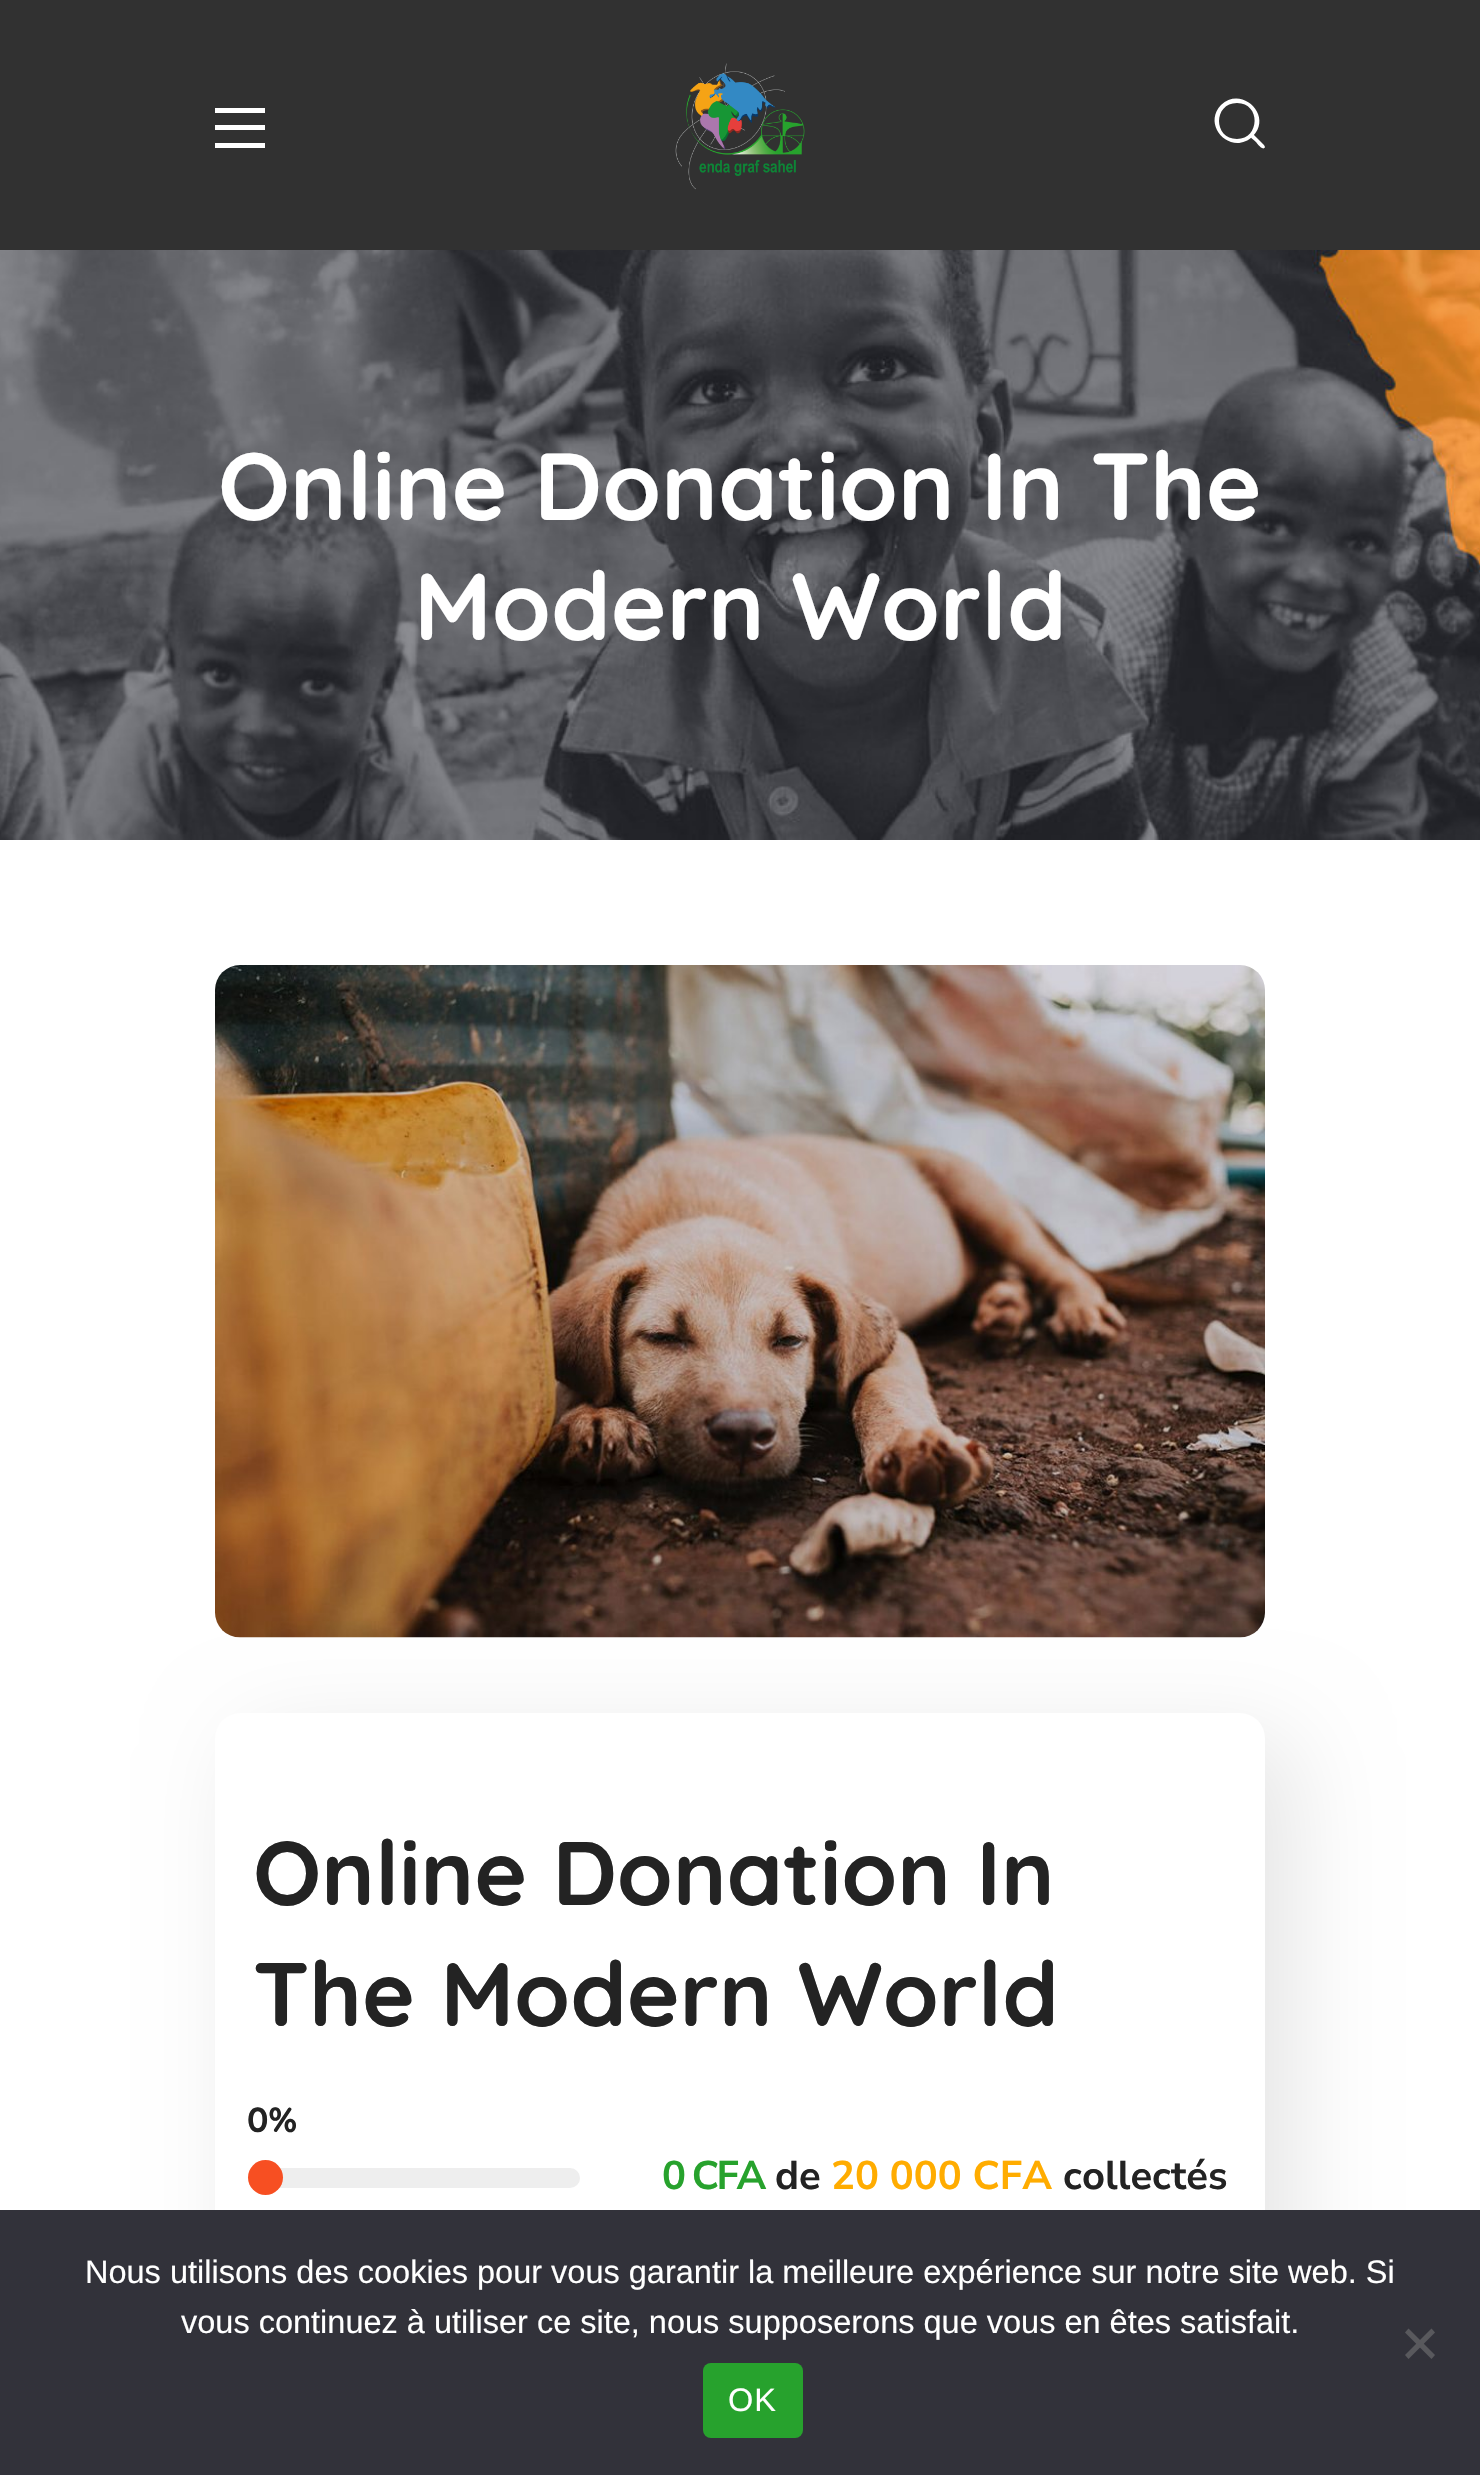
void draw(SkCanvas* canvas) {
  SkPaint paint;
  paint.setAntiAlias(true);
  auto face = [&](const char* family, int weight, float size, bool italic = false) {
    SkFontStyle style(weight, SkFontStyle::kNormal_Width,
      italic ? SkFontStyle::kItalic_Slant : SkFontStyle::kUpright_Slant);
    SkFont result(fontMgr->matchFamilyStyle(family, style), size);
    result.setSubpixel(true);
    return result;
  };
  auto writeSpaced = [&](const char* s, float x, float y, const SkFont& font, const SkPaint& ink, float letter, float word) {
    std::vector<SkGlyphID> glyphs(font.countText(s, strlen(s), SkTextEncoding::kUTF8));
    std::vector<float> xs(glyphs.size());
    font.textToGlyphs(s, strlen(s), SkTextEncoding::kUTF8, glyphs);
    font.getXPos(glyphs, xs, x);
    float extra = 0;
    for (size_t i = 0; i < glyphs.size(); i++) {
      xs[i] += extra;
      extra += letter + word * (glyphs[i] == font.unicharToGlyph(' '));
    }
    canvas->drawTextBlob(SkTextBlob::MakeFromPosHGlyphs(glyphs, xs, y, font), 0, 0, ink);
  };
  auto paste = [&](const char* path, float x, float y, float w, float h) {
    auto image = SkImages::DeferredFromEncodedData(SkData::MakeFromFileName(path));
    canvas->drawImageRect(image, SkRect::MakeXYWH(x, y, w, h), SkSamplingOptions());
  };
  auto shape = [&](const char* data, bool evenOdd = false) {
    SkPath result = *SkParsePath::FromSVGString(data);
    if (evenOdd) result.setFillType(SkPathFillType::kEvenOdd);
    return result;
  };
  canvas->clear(0xffffffff);
  {
    const struct { float x, y, w, h; SkColor color; } items[] = {
      {0, 0, 1480, 250, 0xff313131},
      {215, 108, 50, 5, 0xffffffff},
      {215, 125, 50, 5, 0xffffffff},
      {215, 143, 50, 5, 0xffffffff},
    };
    for (auto [x, y, w, h, color] : items) {
      paint.setColor(color);
      canvas->drawRect(SkRect::MakeXYWH(x, y, w, h), paint);
    }
  }
  paste("img/1.png", 675, 63, 130, 127);
  canvas->drawPath(shape("M1221 105C1242 85 1273 116 1253 136C1232 157 1201 126 1221 105ZM1237 139C1260 139 1261 103 1237 103C1213 103 1213 139 1237 139ZM1264 145L1265 147C1263 152 1256 142 1256 142C1255 141 1248 136 1250 134C1250 133 1252 133 1253 134Z"), paint);
  paste("img/2.png", 0, 250, 1480, 590);
  paste("img/3.png", 215, 965, 1050, 673);
  paint.setColor(0x1a000000);
  paint.setMaskFilter(SkMaskFilter::MakeBlur(kNormal_SkBlurStyle, 47.5f));
  canvas->drawRoundRect(SkRect::MakeXYWH(243, 1738, 1050, 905), 25, 25, paint);
  paint.setMaskFilter(nullptr);
  paint.setColor(0xffffffff);
  canvas->drawRoundRect(SkRect::MakeXYWH(215, 1713, 1050, 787), 25, 25, paint);
  paint.setColor(0xffeeeeee);
  canvas->drawRoundRect(SkRect::MakeXYWH(253, 2168, 327, 20), 10, 10, paint);
  paint.setColor(0xfff74f22);
  canvas->drawCircle(265.5f, 2177.5f, 17.5f, paint);
  paint.setColor(0xff32323a);
  canvas->drawRect(SkRect::MakeXYWH(0, 2210, 1480, 265), paint);
  paint.setColor(0xff59595d);
  canvas->drawPath(shape("M1431.5 2328.5L1435 2332.5L1408.5 2359L1405 2355Z"), paint);
  canvas->drawPath(shape("M1405 2332.5L1408.5 2328.5L1435 2355L1431.5 2359Z"), paint);
  paint.setColor(0xff27a22d);
  canvas->drawRoundRect(SkRect::MakeXYWH(703, 2363, 100, 75), 8, 8, paint);
  auto f0 = face("Quicksand", 700, 95);
  paint.setColor(0xffffffff);
  canvas->drawString("Online Donation In The", 218, 520, f0, paint);
  canvas->drawString("Modern World", 414, 640, f0, paint);
  auto f1 = face("Quicksand", 700, 90);
  paint.setColor(0xff232323);
  canvas->drawString("Online Donation In", 253, 1905, f1, paint);
  canvas->drawString("The Modern World", 253, 2026, f1, paint);
  auto f2 = face("Quicksand", 700, 35);
  canvas->drawString("0%", 247, 2132, f2, paint);
  auto f3 = face("Nunito Sans", 700, 40);
  paint.setColor(0xff27a22d);
  writeSpaced("0 CFA", 662, 2189, f3, paint, -2.5f, 0);
  paint.setColor(0xff232323);
  canvas->drawString("de", 775, 2189, f3, paint);
  paint.setColor(0xffffac00);
  canvas->drawString("20 000 CFA", 831, 2189, f3, paint);
  paint.setColor(0xff232323);
  canvas->drawString("collectés", 1063, 2189, f3, paint);
  auto f4 = face("Liberation Sans", 400, 32.5f);
  paint.setColor(0xffffffff);
  canvas->drawString("Nous utilisons des cookies pour vous garantir la meilleure expérience sur notre site web. Si", 85, 2283, f4, paint);
  canvas->drawString("vous continuez à utiliser ce site, nous supposerons que vous en êtes satisfait.", 181, 2333, f4, paint);
  writeSpaced("OK", 728, 2411, f4, paint, 1, 0);
}
